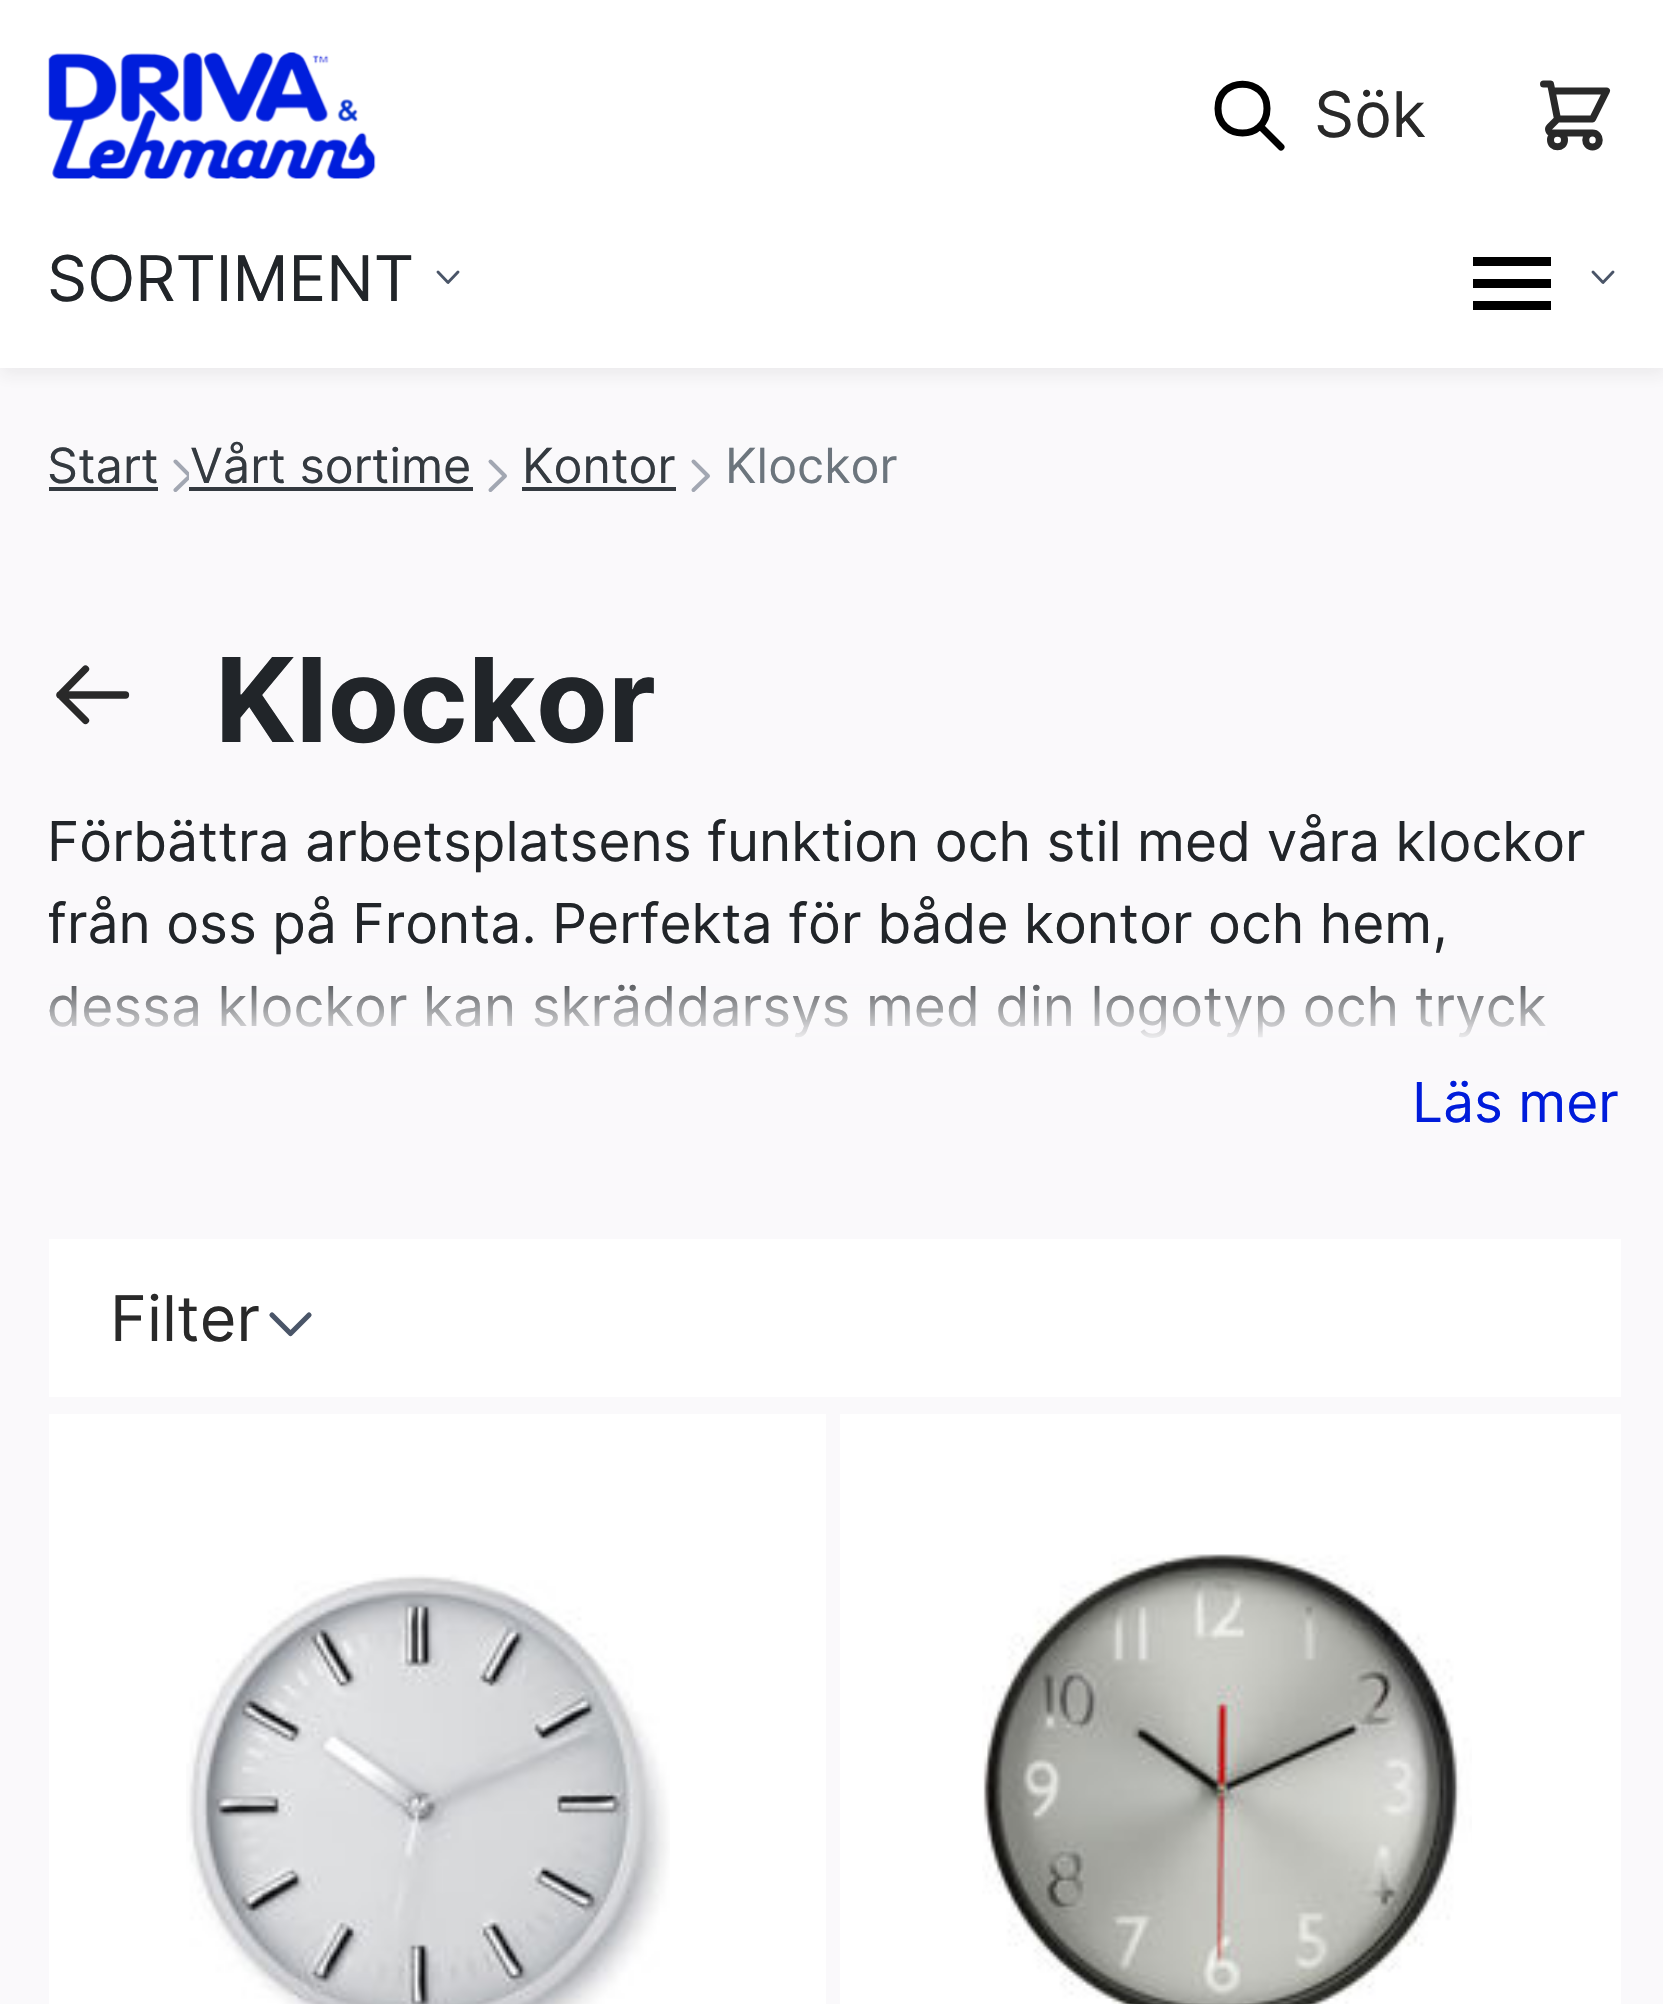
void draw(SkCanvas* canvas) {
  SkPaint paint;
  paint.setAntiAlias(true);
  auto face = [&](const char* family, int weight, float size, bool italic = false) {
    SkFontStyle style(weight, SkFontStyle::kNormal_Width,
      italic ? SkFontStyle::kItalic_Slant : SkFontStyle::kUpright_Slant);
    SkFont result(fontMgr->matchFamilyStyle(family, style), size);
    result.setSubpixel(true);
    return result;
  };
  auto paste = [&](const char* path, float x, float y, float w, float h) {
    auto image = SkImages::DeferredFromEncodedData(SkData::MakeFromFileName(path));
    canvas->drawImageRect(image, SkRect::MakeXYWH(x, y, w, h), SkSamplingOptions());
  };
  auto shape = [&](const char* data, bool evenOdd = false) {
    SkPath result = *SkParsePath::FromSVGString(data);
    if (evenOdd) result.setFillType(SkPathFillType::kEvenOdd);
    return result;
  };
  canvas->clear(0xfffaf9fb);
  paint.setColor(0x12292929);
  paint.setMaskFilter(SkMaskFilter::MakeBlur(kNormal_SkBlurStyle, 8));
  canvas->drawRect(SkRect::MakeXYWH(0, 7, 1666, 368), paint);
  paint.setMaskFilter(nullptr);
  paint.setColor(0xffffffff);
  canvas->drawRect(SkRect::MakeXYWH(0, 0, 1663, 368), paint);
  paste("img/1.png", 48, 52, 328, 127);
  paint.setStroke(true);
  paint.setStrokeWidth(7);
  paint.setStrokeCap(SkPaint::kRound_Cap);
  paint.setStrokeJoin(SkPaint::kRound_Join);
  paint.setColor(0xff000000);
  canvas->drawPath(shape("M1281 147L1260 126M1267 108.5C1267 141 1218 141 1218 108.5C1218 76 1267 76 1267 108.5Z"), paint);
  paint.setColor(0xff292929);
  canvas->drawPath(shape("M1543.5 84H1550.5L1552 91M1557.5 119H1592.5L1606.5 91H1552M1557.5 119L1552 91M1557.5 119L1549.5 127C1547.5 129 1549 133 1552 133H1592.5M1592.5 133C1583.5 133 1583.5 147 1592.5 147C1601.5 147 1601.5 133 1592.5 133ZM1564.5 140C1564.5 149 1550.5 149 1550.5 140C1550.5 131 1564.5 131 1564.5 140Z"), paint);
  paint.setStrokeWidth(2.9f);
  paint.setColor(0xff4a5568);
  canvas->drawPath(shape("M458 272L448 282.5L438 272"), paint);
  paint.setStroke(false);
  paint.setColor(0xff000000);
  canvas->drawPath(shape("M1473 257H1551V266H1473ZM1473 279H1551V288H1473ZM1473 301H1551V310H1473Z"), paint);
  paint.setStroke(true);
  paint.setColor(0xff4a5568);
  canvas->drawPath(shape("M1613 272L1603 282.5L1593 272"), paint);
  paint.setStroke(false);
  paint.setColor(0xff343a40);
  canvas->drawRect(SkRect::MakeXYWH(49, 487, 109, 4), paint);
  canvas->save();
  canvas->clipRect(SkRect::MakeXYWH(158, 452, 31, 49));
  paint.setStroke(true);
  paint.setStrokeWidth(4);
  paint.setColor(0xffa2a7b2);
  canvas->drawPath(shape("M175.5 461.5L190 476L175.5 490"), paint);
  canvas->restore();
  paint.setStroke(false);
  paint.setColor(0xff343a40);
  canvas->drawRect(SkRect::MakeXYWH(189, 487, 284, 4), paint);
  paint.setStroke(true);
  paint.setColor(0xffa2a7b2);
  canvas->drawPath(shape("M490.5 461.5L505 476L490.5 490"), paint);
  paint.setStroke(false);
  paint.setColor(0xff343a40);
  canvas->drawRect(SkRect::MakeXYWH(522, 487, 154, 4), paint);
  paint.setStroke(true);
  paint.setColor(0xffa2a7b2);
  canvas->drawPath(shape("M693.5 461.5L708 476L693.5 490"), paint);
  paint.setStrokeWidth(7.3f);
  paint.setColor(0xff292929);
  canvas->drawPath(shape("M85.5 720.5L60 695M60 695L85.5 669M60 695H125.5"), paint);
  paint.setStroke(false);
  paint.setColor(0xffffffff);
  canvas->drawRect(SkRect::MakeXYWH(49, 1239, 1572, 158), paint);
  paint.setStroke(true);
  paint.setStrokeWidth(5.2f);
  paint.setColor(0xff4a5568);
  canvas->drawPath(shape("M309 1315L290.5 1333.5L272 1315"), paint);
  paint.setStroke(false);
  paint.setColor(0xffffffff);
  canvas->drawRect(SkRect::MakeXYWH(49, 1414, 777, 590), paint);
  paste("img/2.png", 186, 1574, 484, 430);
  canvas->drawRect(SkRect::MakeXYWH(840, 1414, 781, 590), paint);
  paste("img/3.png", 982, 1554, 490, 450);
  auto f0 = face("Inter", 400, 63);
  paint.setColor(0xff292929);
  canvas->drawString("Sök", 1314, 137, f0, paint);
  paint.setColor(0xff212529);
  canvas->drawString("SORTIMENT", 47, 301, f0, paint);
  auto f1 = face("Inter", 400, 48.5f);
  paint.setColor(0xff343a40);
  {
    const struct { const char* s; float x, y; } items[] = {
      {"Start", 47, 483},
      {"Vårt sortime", 190, 483},
      {"Kontor", 522, 483},
    };
    for (auto [s, x, y] : items) {
      canvas->drawString(s, x, y, f1, paint);
    }
  }
  paint.setColor(0xff6c757d);
  canvas->drawString("Klockor", 725, 483, f1, paint);
  auto f2 = face("Inter", 700, 117);
  paint.setColor(0xff212529);
  canvas->drawString("Klockor", 215, 742, f2, paint);
  auto f3 = face("Inter", 400, 55.1f);
  canvas->drawString("Förbättra arbetsplatsens funktion och stil med våra klockor", 47, 861, f3, paint);
  canvas->save();
  canvas->clipRect(SkRect::MakeXYWH(49, 802, 1572, 248));
  canvas->drawString("från oss på Fronta. Perfekta för både kontor och hem,", 47, 943, f3, paint);
  canvas->restore();
  canvas->drawString("dessa klockor kan skräddarsys med din logotyp och tryck", 47, 1026, f3, paint);
  {
    const SkColor colors[] = {0x00faf9fb, 0xfffaf9fb};
    const float stops[] = {0, 1};
    const SkPoint ends[] = {{835, 963}, {835, 1043}};
    paint.setShader(SkGradientShader::MakeLinear(ends, colors, stops, 2, SkTileMode::kClamp));
    paint.setAlpha(255);
  }
  canvas->drawRect(SkRect::MakeXYWH(50, 984, 1497, 54), paint);
  paint.setShader(nullptr);
  paint.setColor(0xff001cdb);
  canvas->drawString("Läs mer", 1412, 1122, f3, paint);
  paint.setColor(0xff292929);
  canvas->drawString("Filter", 110, 1341, f0, paint);
}
